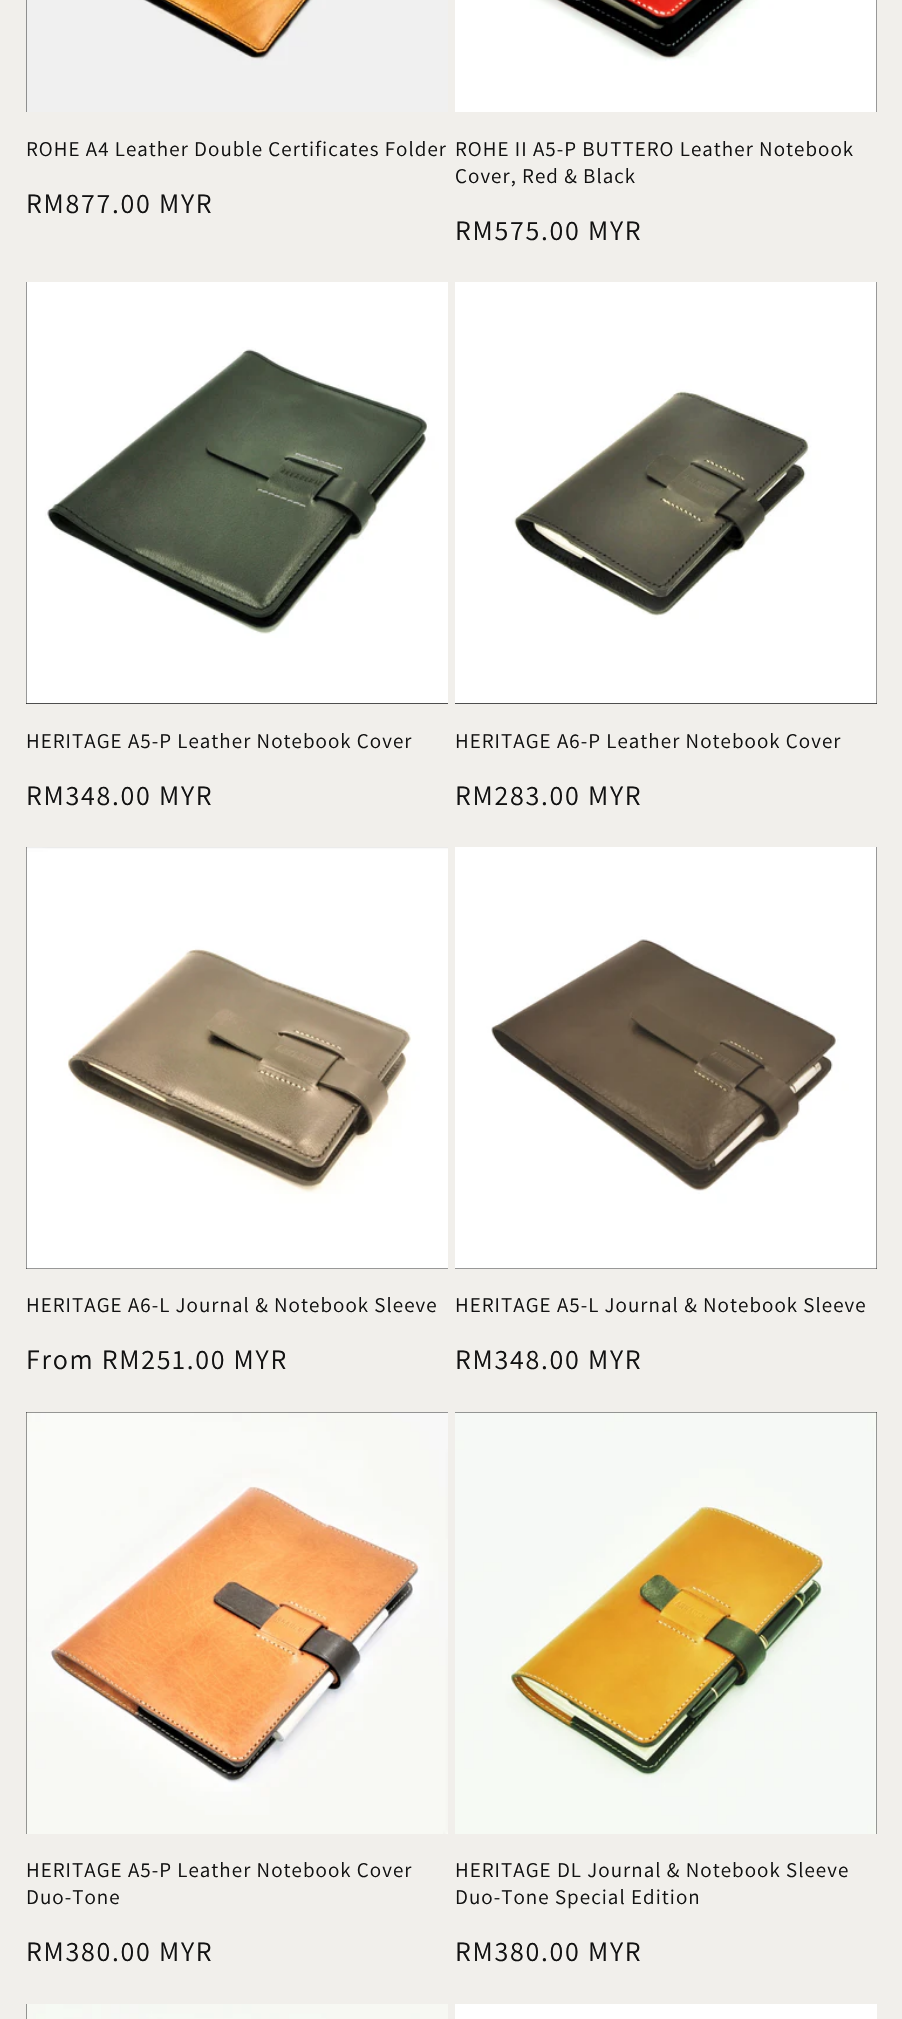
void draw(SkCanvas* canvas) {
  SkPaint paint;
  paint.setAntiAlias(true);
  auto face = [&](const char* family, int weight, float size, bool italic = false) {
    SkFontStyle style(weight, SkFontStyle::kNormal_Width,
      italic ? SkFontStyle::kItalic_Slant : SkFontStyle::kUpright_Slant);
    SkFont result(fontMgr->matchFamilyStyle(family, style), size);
    result.setSubpixel(true);
    return result;
  };
  auto writeSpaced = [&](const char* s, float x, float y, const SkFont& font, const SkPaint& ink, float letter, float word) {
    std::vector<SkGlyphID> glyphs(font.countText(s, strlen(s), SkTextEncoding::kUTF8));
    std::vector<float> xs(glyphs.size());
    font.textToGlyphs(s, strlen(s), SkTextEncoding::kUTF8, glyphs);
    font.getXPos(glyphs, xs, x);
    float extra = 0;
    for (size_t i = 0; i < glyphs.size(); i++) {
      xs[i] += extra;
      extra += letter + word * (glyphs[i] == font.unicharToGlyph(' '));
    }
    canvas->drawTextBlob(SkTextBlob::MakeFromPosHGlyphs(glyphs, xs, y, font), 0, 0, ink);
  };
  auto paste = [&](const char* path, float x, float y, float w, float h) {
    auto image = SkImages::DeferredFromEncodedData(SkData::MakeFromFileName(path));
    canvas->drawImageRect(image, SkRect::MakeXYWH(x, y, w, h), SkSamplingOptions());
  };
  canvas->clear(0xfff1efeb);
  paint.setColor(0xff121212);
  canvas->drawRect(SkRect::MakeXYWH(26, 0, 1, 112), paint);
  paste("img/1.png", 26, 0, 422, 112);
  canvas->drawRect(SkRect::MakeXYWH(876, 0, 1, 112), paint);
  paste("img/2.png", 455, 0, 422, 112);
  canvas->drawRect(SkRect::MakeXYWH(26, 282, 422, 422), paint);
  paste("img/3.png", 26, 282, 422, 422);
  canvas->drawRect(SkRect::MakeXYWH(455, 282, 422, 422), paint);
  paste("img/4.png", 455, 282, 422, 422);
  canvas->drawRect(SkRect::MakeXYWH(26, 847, 422, 422), paint);
  paste("img/5.png", 26, 847, 422, 422);
  canvas->drawRect(SkRect::MakeXYWH(455, 847, 422, 422), paint);
  paste("img/6.png", 455, 847, 422, 422);
  canvas->drawRect(SkRect::MakeXYWH(26, 1412, 422, 422), paint);
  paste("img/7.png", 26, 1412, 422, 422);
  canvas->drawRect(SkRect::MakeXYWH(455, 1412, 422, 422), paint);
  paste("img/8.png", 455, 1412, 422, 422);
  canvas->drawRect(SkRect::MakeXYWH(26, 2004, 1, 15), paint);
  paste("img/9.png", 26, 2004, 422, 15);
  paint.setColor(0xffffffff);
  canvas->drawRect(SkRect::MakeXYWH(455, 2004, 422, 15), paint);
  auto f0 = face("Assistant", 400, 21);
  paint.setColor(0xff121212);
  writeSpaced("ROHE A4 Leather Double Certificates Folder", 26, 156, f0, paint, 1.05f, 0);
  auto f1 = face("Assistant", 400, 28);
  writeSpaced("RM877.00 MYR", 26, 213, f1, paint, 1.75f, 0);
  writeSpaced("ROHE II A5-P BUTTERO Leather Notebook", 455, 156, f0, paint, 1.05f, 0);
  writeSpaced("Cover, Red & Black", 455, 183, f0, paint, 1.05f, 0);
  writeSpaced("RM575.00 MYR", 455, 240, f1, paint, 1.75f, 0);
  writeSpaced("HERITAGE A5-P Leather Notebook Cover", 26, 748, f0, paint, 1.05f, 0);
  writeSpaced("RM348.00 MYR", 26, 805, f1, paint, 1.75f, 0);
  writeSpaced("HERITAGE A6-P Leather Notebook Cover", 455, 748, f0, paint, 1.05f, 0);
  writeSpaced("RM283.00 MYR", 455, 805, f1, paint, 1.75f, 0);
  writeSpaced("HERITAGE A6-L Journal & Notebook Sleeve", 26, 1312, f0, paint, 1.05f, 0);
  writeSpaced("From RM251.00 MYR", 26, 1369, f1, paint, 1.75f, 0);
  writeSpaced("HERITAGE A5-L Journal & Notebook Sleeve", 455, 1312, f0, paint, 1.05f, 0);
  writeSpaced("RM348.00 MYR", 455, 1369, f1, paint, 1.75f, 0);
  writeSpaced("HERITAGE A5-P Leather Notebook Cover", 26, 1877, f0, paint, 1.05f, 0);
  writeSpaced("Duo-Tone", 26, 1904, f0, paint, 1.05f, 0);
  writeSpaced("RM380.00 MYR", 26, 1961, f1, paint, 1.75f, 0);
  writeSpaced("HERITAGE DL Journal & Notebook Sleeve", 455, 1877, f0, paint, 1.05f, 0);
  writeSpaced("Duo-Tone Special Edition", 455, 1904, f0, paint, 1.05f, 0);
  writeSpaced("RM380.00 MYR", 455, 1961, f1, paint, 1.75f, 0);
}
